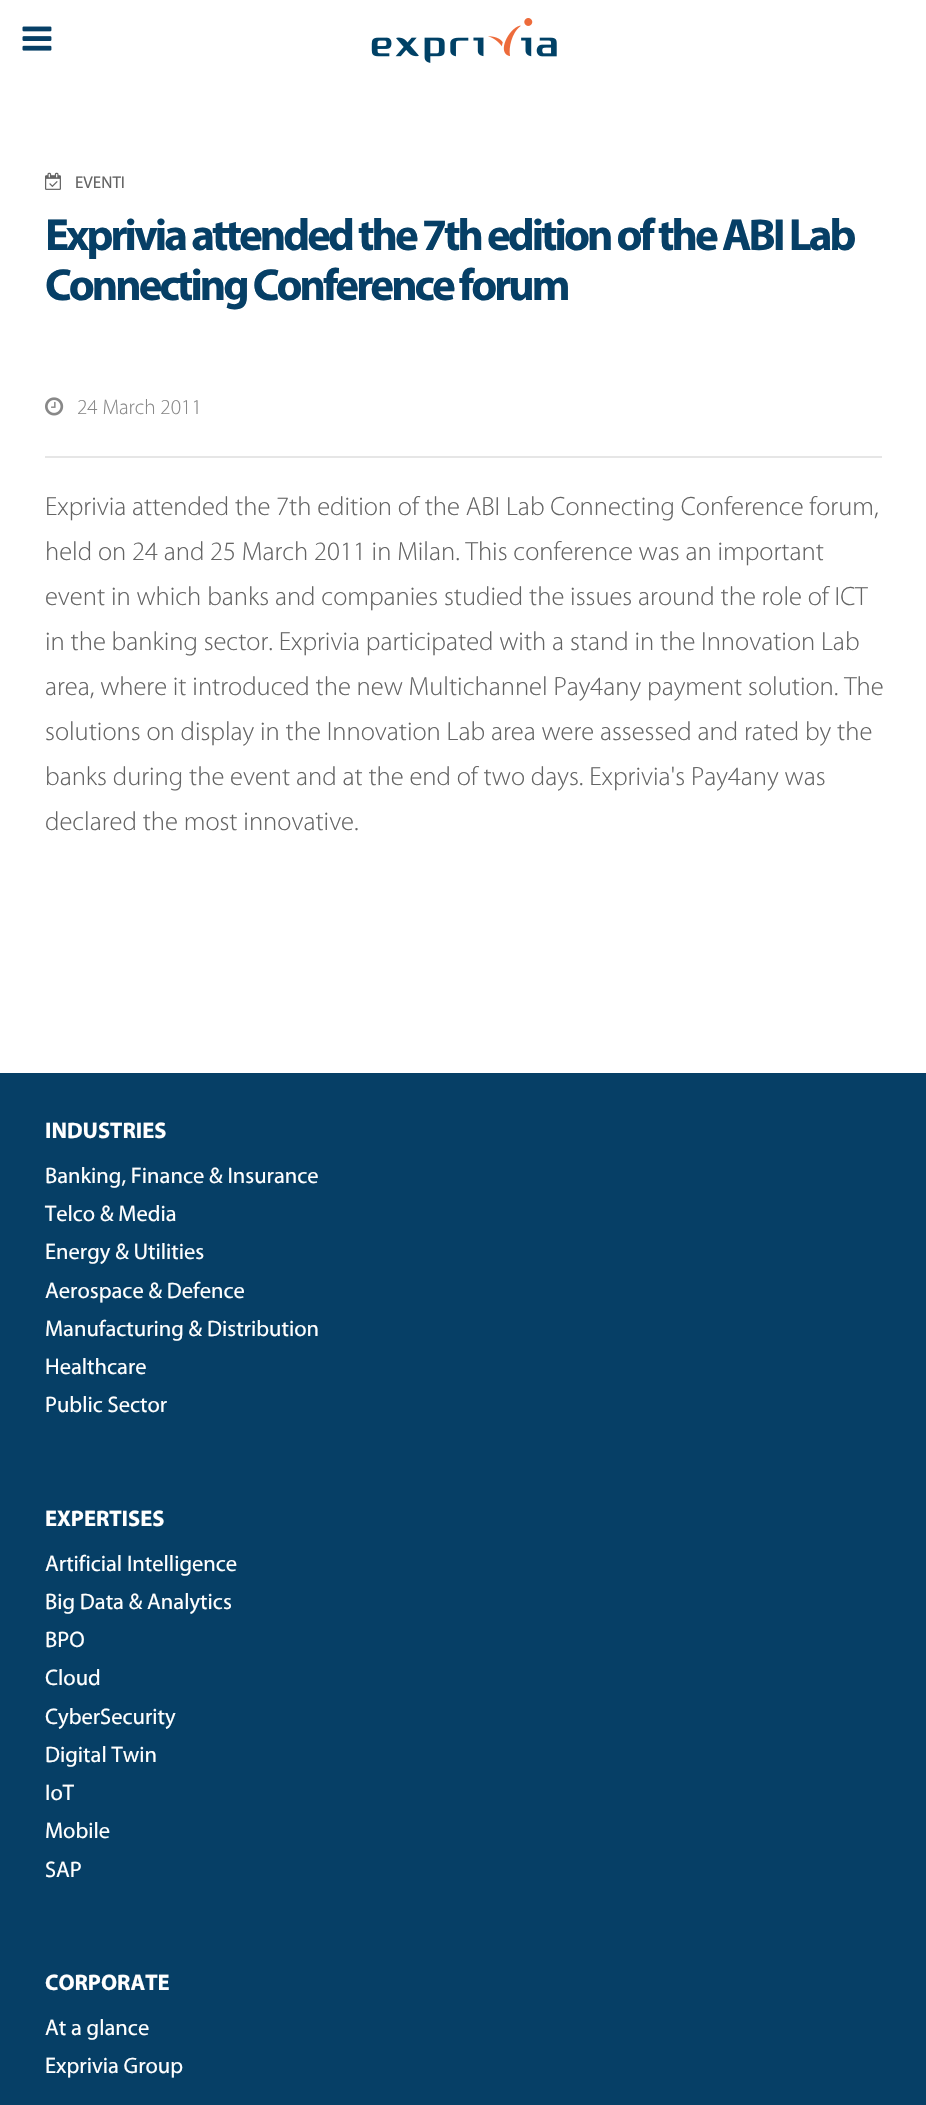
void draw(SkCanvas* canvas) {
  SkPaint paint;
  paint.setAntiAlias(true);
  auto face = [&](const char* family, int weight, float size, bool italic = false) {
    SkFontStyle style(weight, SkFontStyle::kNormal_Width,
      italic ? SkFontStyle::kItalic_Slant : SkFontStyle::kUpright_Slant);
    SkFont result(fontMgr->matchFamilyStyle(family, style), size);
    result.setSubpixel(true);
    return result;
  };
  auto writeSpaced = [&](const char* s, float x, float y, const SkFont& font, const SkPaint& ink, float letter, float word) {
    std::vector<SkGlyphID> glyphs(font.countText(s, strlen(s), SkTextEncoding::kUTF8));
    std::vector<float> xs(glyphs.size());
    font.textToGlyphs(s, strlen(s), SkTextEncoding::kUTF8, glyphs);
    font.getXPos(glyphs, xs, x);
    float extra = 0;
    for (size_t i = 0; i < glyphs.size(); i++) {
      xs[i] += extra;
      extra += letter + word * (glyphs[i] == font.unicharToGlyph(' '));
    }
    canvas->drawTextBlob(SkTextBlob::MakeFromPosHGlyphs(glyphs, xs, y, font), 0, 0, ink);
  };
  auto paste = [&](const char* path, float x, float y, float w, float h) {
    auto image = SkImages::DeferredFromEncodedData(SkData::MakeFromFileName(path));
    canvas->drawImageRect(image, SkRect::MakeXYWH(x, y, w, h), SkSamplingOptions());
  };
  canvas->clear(0xffffffff);
  paste("img/1.png", 22, 26, 30, 25);
  paste("img/2.png", 371, 18, 186, 45);
  paste("img/3.png", 45, 172, 16, 18);
  paint.setColor(0xffe6e6e6);
  canvas->drawRect(SkRect::MakeXYWH(45, 456, 837, 2), paint);
  paste("img/4.png", 45, 397, 19, 19);
  paint.setColor(0xff063f66);
  canvas->drawRect(SkRect::MakeXYWH(0, 1073, 926, 1032), paint);
  auto f0 = face("Myriad", 400, 17);
  paint.setColor(0xff646464);
  canvas->drawString("EVENTI", 75, 188, f0, paint);
  auto f1 = face("Myriad", 700, 45.1f);
  paint.setColor(0xff063f66);
  writeSpaced("Exprivia attended the 7th edition of the ABI Lab", 45, 250, f1, paint, -3, 0);
  writeSpaced("Connecting Conference forum", 45, 300, f1, paint, -3, 0);
  auto f2 = face("Myriad", 300, 21.25f);
  paint.setColor(0xff888888);
  canvas->drawString("24 March 2011", 77, 414, f2, paint);
  auto f3 = face("Myriad", 300, 26.5f);
  paint.setColor(0xff646464);
  {
    const struct { const char* s; float x, y; } items[] = {
      {"Exprivia attended the 7th edition of the ABI Lab Connecting Conference forum,", 45, 515},
      {"held on 24 and 25 March 2011 in Milan. This conference was an important", 45, 560},
      {"event in which banks and companies studied the issues around the role of ICT", 45, 605},
      {"in the banking sector. Exprivia participated with a stand in the Innovation Lab", 45, 650},
      {"area, where it introduced the new Multichannel Pay4any payment solution. The", 45, 695},
      {"solutions on display in the Innovation Lab area were assessed and rated by the", 45, 740},
      {"banks during the event and at the end of two days. Exprivia's Pay4any was", 45, 785},
      {"declared the most innovative.", 45, 830},
    };
    for (auto [s, x, y] : items) {
      canvas->drawString(s, x, y, f3, paint);
    }
  }
  auto f4 = face("Myriad", 700, 22.5f);
  paint.setColor(0xffffffff);
  canvas->drawString("INDUSTRIES", 45, 1138, f4, paint);
  auto f5 = face("Myriad", 400, 22.5f);
  {
    const struct { const char* s; float x, y; } items[] = {
      {"Banking, Finance & Insurance", 45, 1183},
      {"Telco & Media", 45, 1221},
      {"Energy & Utilities", 45, 1259},
      {"Aerospace & Defence", 45, 1298},
      {"Manufacturing & Distribution", 45, 1336},
      {"Healthcare", 45, 1374},
      {"Public Sector", 45, 1412},
    };
    for (auto [s, x, y] : items) {
      canvas->drawString(s, x, y, f5, paint);
    }
  }
  canvas->drawString("EXPERTISES", 45, 1526, f4, paint);
  {
    const struct { const char* s; float x, y; } items[] = {
      {"Artificial Intelligence", 45, 1571},
      {"Big Data & Analytics", 45, 1609},
      {"BPO", 45, 1647},
      {"Cloud", 45, 1685},
      {"CyberSecurity", 45, 1724},
      {"Digital Twin", 45, 1762},
      {"IoT", 45, 1800},
      {"Mobile", 45, 1838},
      {"SAP", 45, 1877},
    };
    for (auto [s, x, y] : items) {
      canvas->drawString(s, x, y, f5, paint);
    }
  }
  canvas->drawString("CORPORATE", 45, 1990, f4, paint);
  canvas->drawString("At a glance", 45, 2035, f5, paint);
  canvas->drawString("Exprivia Group", 45, 2073, f5, paint);
}
